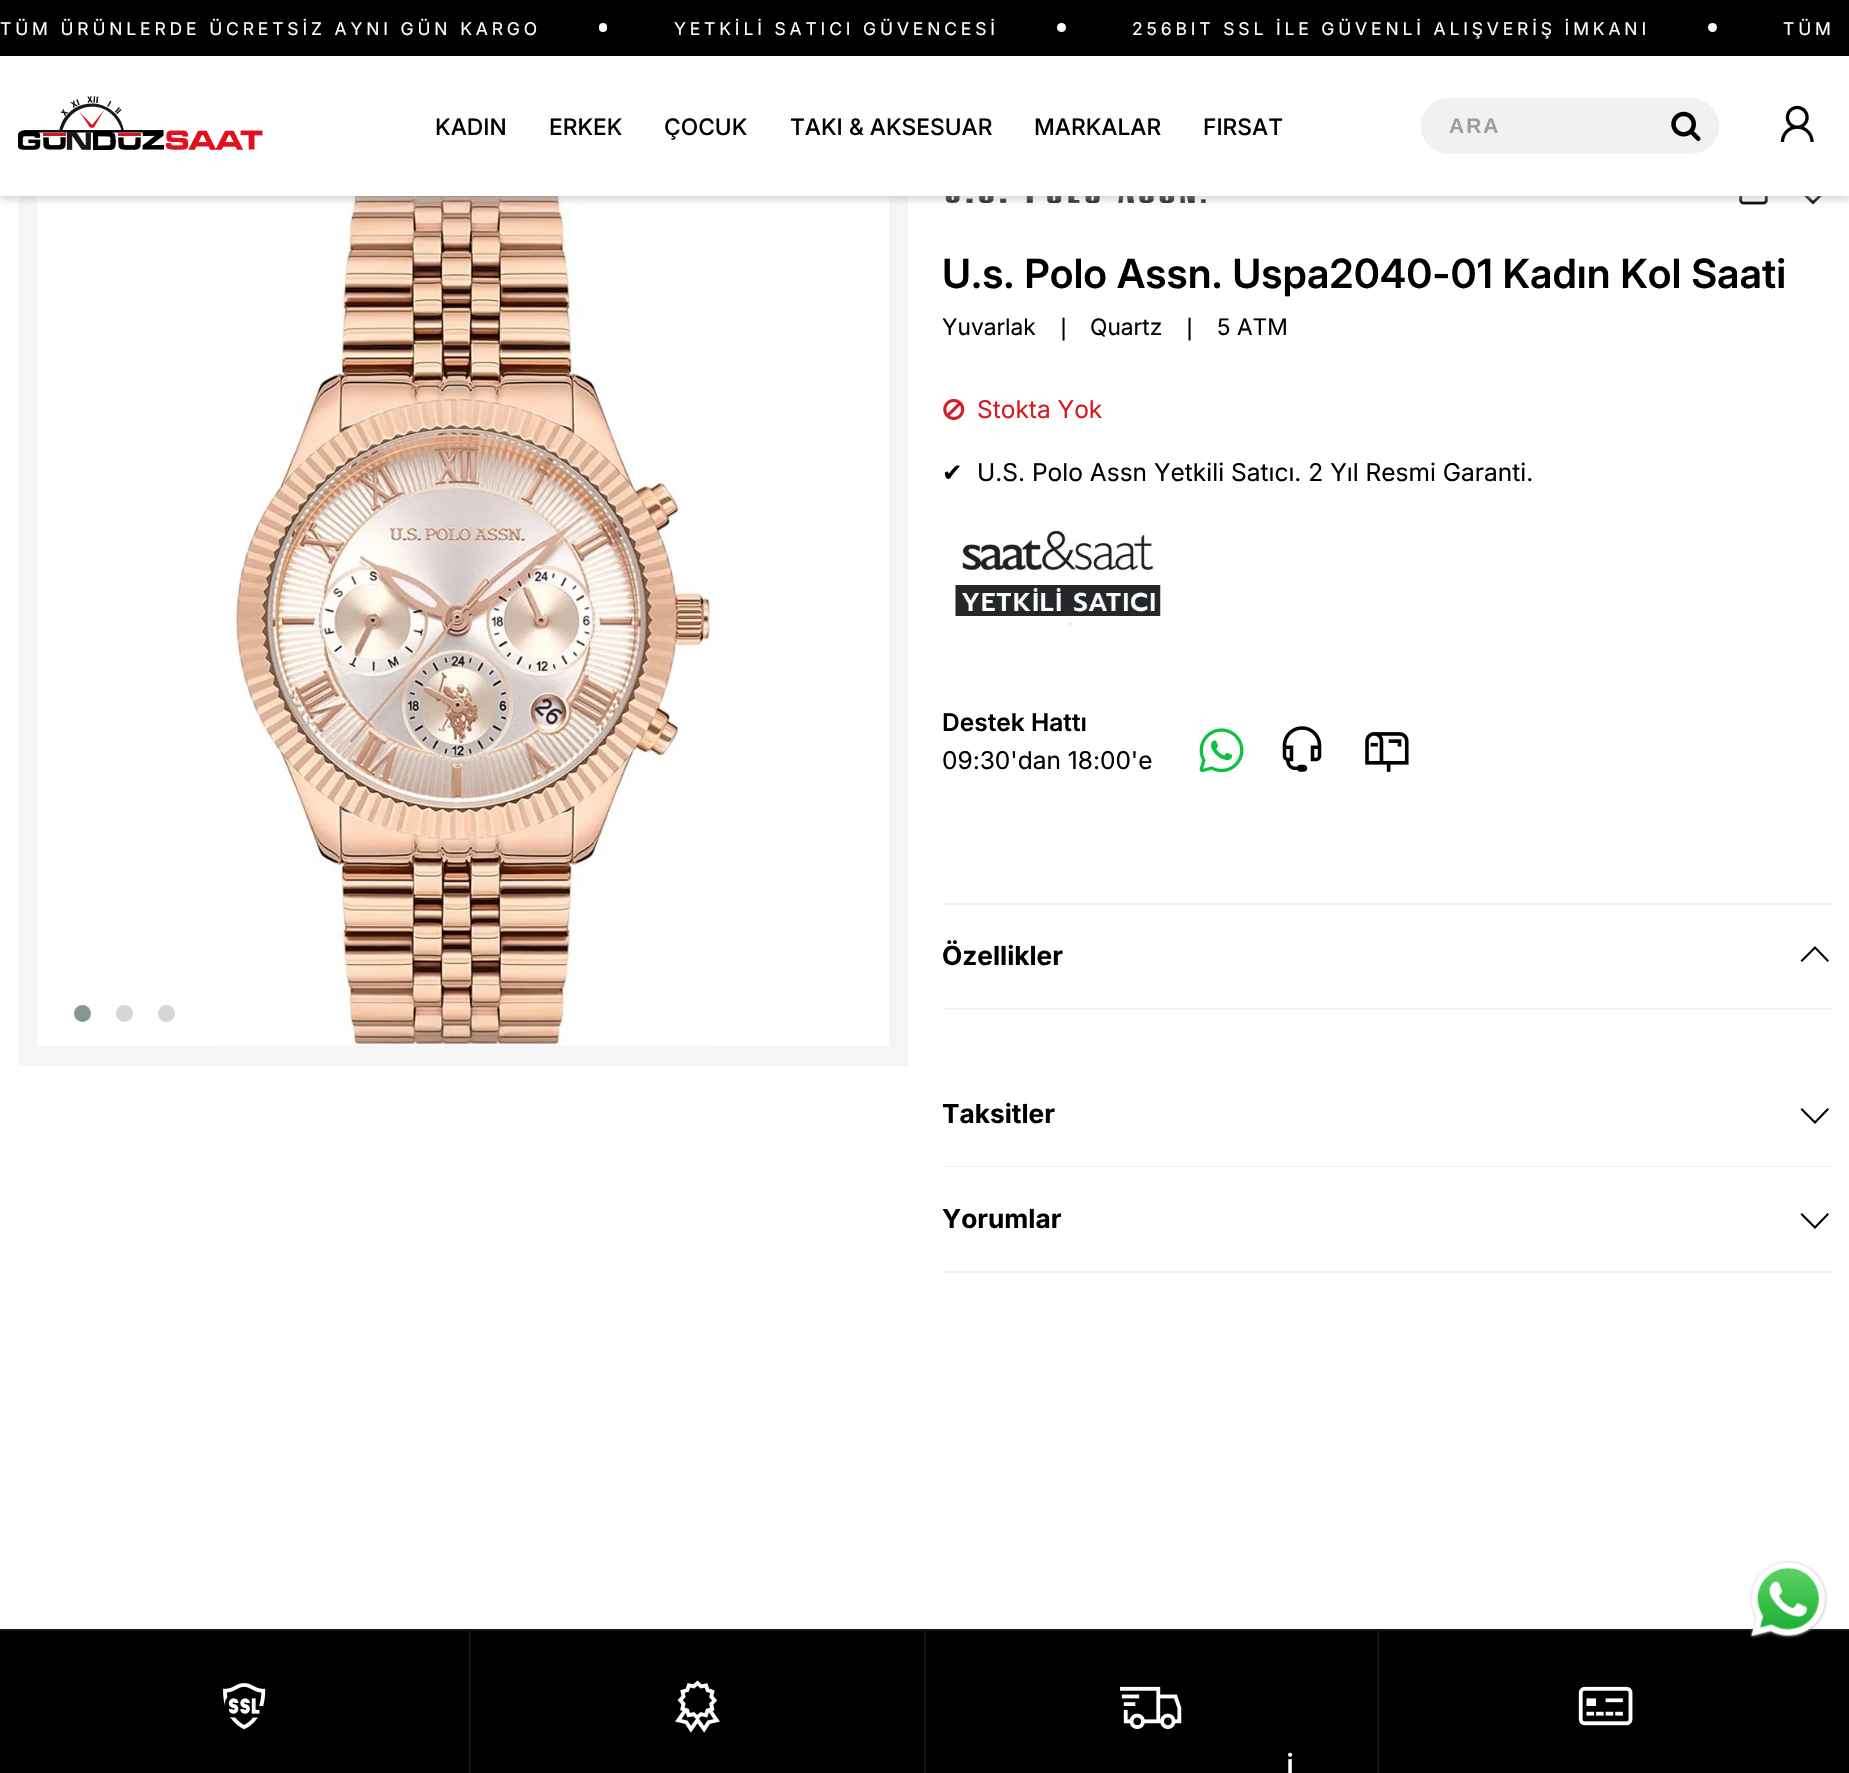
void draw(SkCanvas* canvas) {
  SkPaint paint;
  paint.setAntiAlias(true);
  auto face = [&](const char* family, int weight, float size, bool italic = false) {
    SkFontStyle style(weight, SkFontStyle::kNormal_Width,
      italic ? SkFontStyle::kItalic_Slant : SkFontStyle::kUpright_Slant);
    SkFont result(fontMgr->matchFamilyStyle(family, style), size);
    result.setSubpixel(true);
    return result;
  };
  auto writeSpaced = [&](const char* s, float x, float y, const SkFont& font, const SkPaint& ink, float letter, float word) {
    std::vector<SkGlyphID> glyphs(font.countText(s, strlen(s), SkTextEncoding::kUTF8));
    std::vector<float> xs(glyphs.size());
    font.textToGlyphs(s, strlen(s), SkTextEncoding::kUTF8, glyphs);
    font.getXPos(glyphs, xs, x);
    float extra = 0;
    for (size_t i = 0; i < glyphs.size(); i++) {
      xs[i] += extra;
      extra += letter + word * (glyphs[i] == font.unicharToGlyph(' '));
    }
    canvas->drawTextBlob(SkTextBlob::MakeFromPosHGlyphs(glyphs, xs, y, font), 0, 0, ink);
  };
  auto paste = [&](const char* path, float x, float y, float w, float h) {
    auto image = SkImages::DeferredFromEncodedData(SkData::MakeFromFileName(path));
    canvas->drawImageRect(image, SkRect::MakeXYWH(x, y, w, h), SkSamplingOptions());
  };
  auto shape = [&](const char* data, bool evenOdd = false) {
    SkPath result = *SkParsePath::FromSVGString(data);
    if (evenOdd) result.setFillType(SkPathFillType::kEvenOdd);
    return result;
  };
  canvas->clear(0xffffffff);
  paint.setColor(0xfff5f5f5);
  canvas->drawRect(SkRect::MakeXYWH(18, 196, 890, 870), paint);
  paste("img/4.png", 37, 196, 852, 850);
  paste("img/5.png", 945, 196, 261, 7);
  paste("img/6.png", 1739, 196, 29, 9);
  paste("img/7.png", 1804, 196, 18, 8);
  paint.setColor(0x80b1b1b1);
  paint.setMaskFilter(SkMaskFilter::MakeBlur(kNormal_SkBlurStyle, 3.5f));
  canvas->drawRect(SkRect::MakeXYWH(0, 4, 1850, 196), paint);
  paint.setMaskFilter(nullptr);
  paint.setColor(0xffffffff);
  canvas->drawRect(SkRect::MakeXYWH(0, 56, 1849, 140), paint);
  paint.setColor(0xff000000);
  canvas->drawRect(SkRect::MakeXYWH(0, 0, 1849, 56), paint);
  paint.setColor(0xffffffff);
  canvas->drawRoundRect(SkRect::MakeXYWH(599, 23, 8, 9), 4, 4, paint);
  canvas->drawCircle(1061.5f, 27.5f, 4.5f, paint);
  canvas->drawCircle(1712.5f, 27.5f, 4.5f, paint);
  paste("img/1.png", 18, 96, 245, 54);
  paint.setColor(0xfff1f1f1);
  canvas->drawRoundRect(SkRect::MakeXYWH(1421, 98, 298, 56), 28, 28, paint);
  canvas->drawRoundRect(SkRect::MakeXYWH(1421, 98, 233, 56), 28, 28, paint);
  canvas->drawRoundRect(SkRect::MakeXYWH(1654, 102, 65, 49), 24.5f, 24.5f, paint);
  paste("img/2.png", 1671, 111, 30, 30);
  paste("img/3.png", 1780, 105, 34, 37);
  paint.setColor(0xff869791);
  canvas->drawCircle(82.5f, 1013.5f, 8.5f, paint);
  paint.setColor(0xffd6d6d6);
  canvas->drawCircle(124.5f, 1013.5f, 8.5f, paint);
  canvas->drawCircle(166.5f, 1013.5f, 8.5f, paint);
  paste("img/8.png", 943, 398, 22, 22);
  paste("img/9.png", 955, 530, 206, 95);
  paste("img/10.png", 1199, 728, 45, 45);
  paste("img/11.png", 1282, 726, 40, 46);
  paste("img/12.png", 1365, 732, 44, 40);
  paint.setColor(0xfff1f1f1);
  canvas->drawRect(SkRect::MakeXYWH(943, 903, 889, 2), paint);
  canvas->drawRect(SkRect::MakeXYWH(943, 1008, 889, 2), paint);
  paint.setColor(0xff000000);
  canvas->drawPath(shape("M1815 946L1800.5 960.5L1802 962L1815 949L1827.5 962L1829 960.5Z"), paint);
  paint.setColor(0xfff1f1f1);
  canvas->drawRect(SkRect::MakeXYWH(943, 1166, 889, 1), paint);
  paint.setColor(0xff000000);
  canvas->drawPath(shape("M1802 1108L1800.5 1109.5L1815 1124L1829 1109.5L1827.5 1108L1815 1121Z"), paint);
  paint.setColor(0xfff1f1f1);
  canvas->drawRect(SkRect::MakeXYWH(943, 1271, 889, 2), paint);
  paint.setColor(0xff000000);
  canvas->drawPath(shape("M1802 1213L1800.5 1214.5L1815 1229L1829 1214.5L1827.5 1213L1815 1226Z"), paint);
  canvas->drawRect(SkRect::MakeXYWH(0, 1631, 1849, 142), paint);
  paint.setColor(0xff141414);
  canvas->drawRect(SkRect::MakeXYWH(0, 1629, 1849, 2), paint);
  paste("img/13.png", 1749, 1560, 79, 79);
  canvas->drawRect(SkRect::MakeXYWH(469, 1631, 2, 142), paint);
  paste("img/14.png", 223, 1683, 43, 47);
  canvas->drawRect(SkRect::MakeXYWH(924, 1631, 2, 142), paint);
  paste("img/15.png", 675, 1680, 45, 53);
  paste("img/16.png", 1578, 1686, 55, 40);
  canvas->drawRect(SkRect::MakeXYWH(1377, 1631, 2, 142), paint);
  paste("img/17.png", 1120, 1686, 62, 43);
  auto f0 = face("Inter", 400, 17.5f);
  paint.setColor(0xffffffff);
  {
    const struct { const char* s; float x, y; } items[] = {
      {"TÜM ÜRÜNLERDE ÜCRETSİZ AYNI GÜN KARGO", 0, 35},
      {"YETKİLİ SATICI GÜVENCESİ", 674, 35},
      {"256BIT SSL İLE GÜVENLİ ALIŞVERİŞ İMKANI", 1132, 35},
      {"TÜM", 1783, 35},
    };
    for (auto [s, x, y] : items) {
      writeSpaced(s, x, y, f0, paint, 3.85f, 0);
    }
  }
  auto f1 = face("Inter", 500, 22.75f);
  paint.setColor(0xff000000);
  {
    const struct { const char* s; float x, y; } items[] = {
      {"KADIN", 435, 135},
      {"ERKEK", 549, 135},
      {"ÇOCUK", 664, 135},
      {"TAKI & AKSESUAR", 790, 135},
      {"MARKALAR", 1034, 135},
      {"FIRSAT", 1203, 135},
    };
    for (auto [s, x, y] : items) {
      canvas->drawString(s, x, y, f1, paint);
    }
  }
  auto f2 = face("Liberation Sans", 700, 21);
  paint.setColor(0xff9e9e9e);
  writeSpaced("ARA", 1449, 133, f2, paint, 2, 0);
  auto f3 = face("Inter", 600, 40.25f);
  paint.setColor(0xff000000);
  canvas->drawString("U.s. Polo Assn. Uspa2040-01 Kadın Kol Saati", 942, 288, f3, paint);
  auto f4 = face("Inter", 400, 22.75f);
  canvas->drawString("Yuvarlak", 942, 335, f4, paint);
  auto f5 = face("DejaVu Sans", 400, 22.75f);
  canvas->drawString("❘", 1054, 335, f5, paint);
  canvas->drawString("Quartz", 1090, 335, f4, paint);
  canvas->drawString("❘", 1180, 335, f5, paint);
  canvas->drawString("5 ATM", 1217, 335, f4, paint);
  auto f6 = face("Inter", 400, 24.5f);
  paint.setColor(0xffd71920);
  canvas->drawString("Stokta Yok", 977, 418, f6, paint);
  auto f7 = face("DejaVu Sans", 400, 24.5f);
  paint.setColor(0xff000000);
  canvas->drawString("✔", 942, 481, f7, paint);
  canvas->drawString("U.S. Polo Assn Yetkili Satıcı. 2 Yıl Resmi Garanti.", 977, 481, f6, paint);
  auto f8 = face("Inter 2", 600, 24.5f);
  canvas->drawString("Destek Hattı", 942, 731, f8, paint);
  canvas->drawString("09:30'dan 18:00'e", 942, 769, f6, paint);
  auto f9 = face("Inter", 700, 26.25f);
  {
    const struct { const char* s; float x, y; } items[] = {
      {"Özellikler", 942, 965},
      {"Taksitler", 942, 1123},
      {"Yorumlar", 942, 1228},
    };
    for (auto [s, x, y] : items) {
      canvas->drawString(s, x, y, f9, paint);
    }
  }
  auto f10 = face("Inter", 500, 30);
  paint.setColor(0xffffffff);
  canvas->drawString("İ", 1286, 1781, f10, paint);
}
